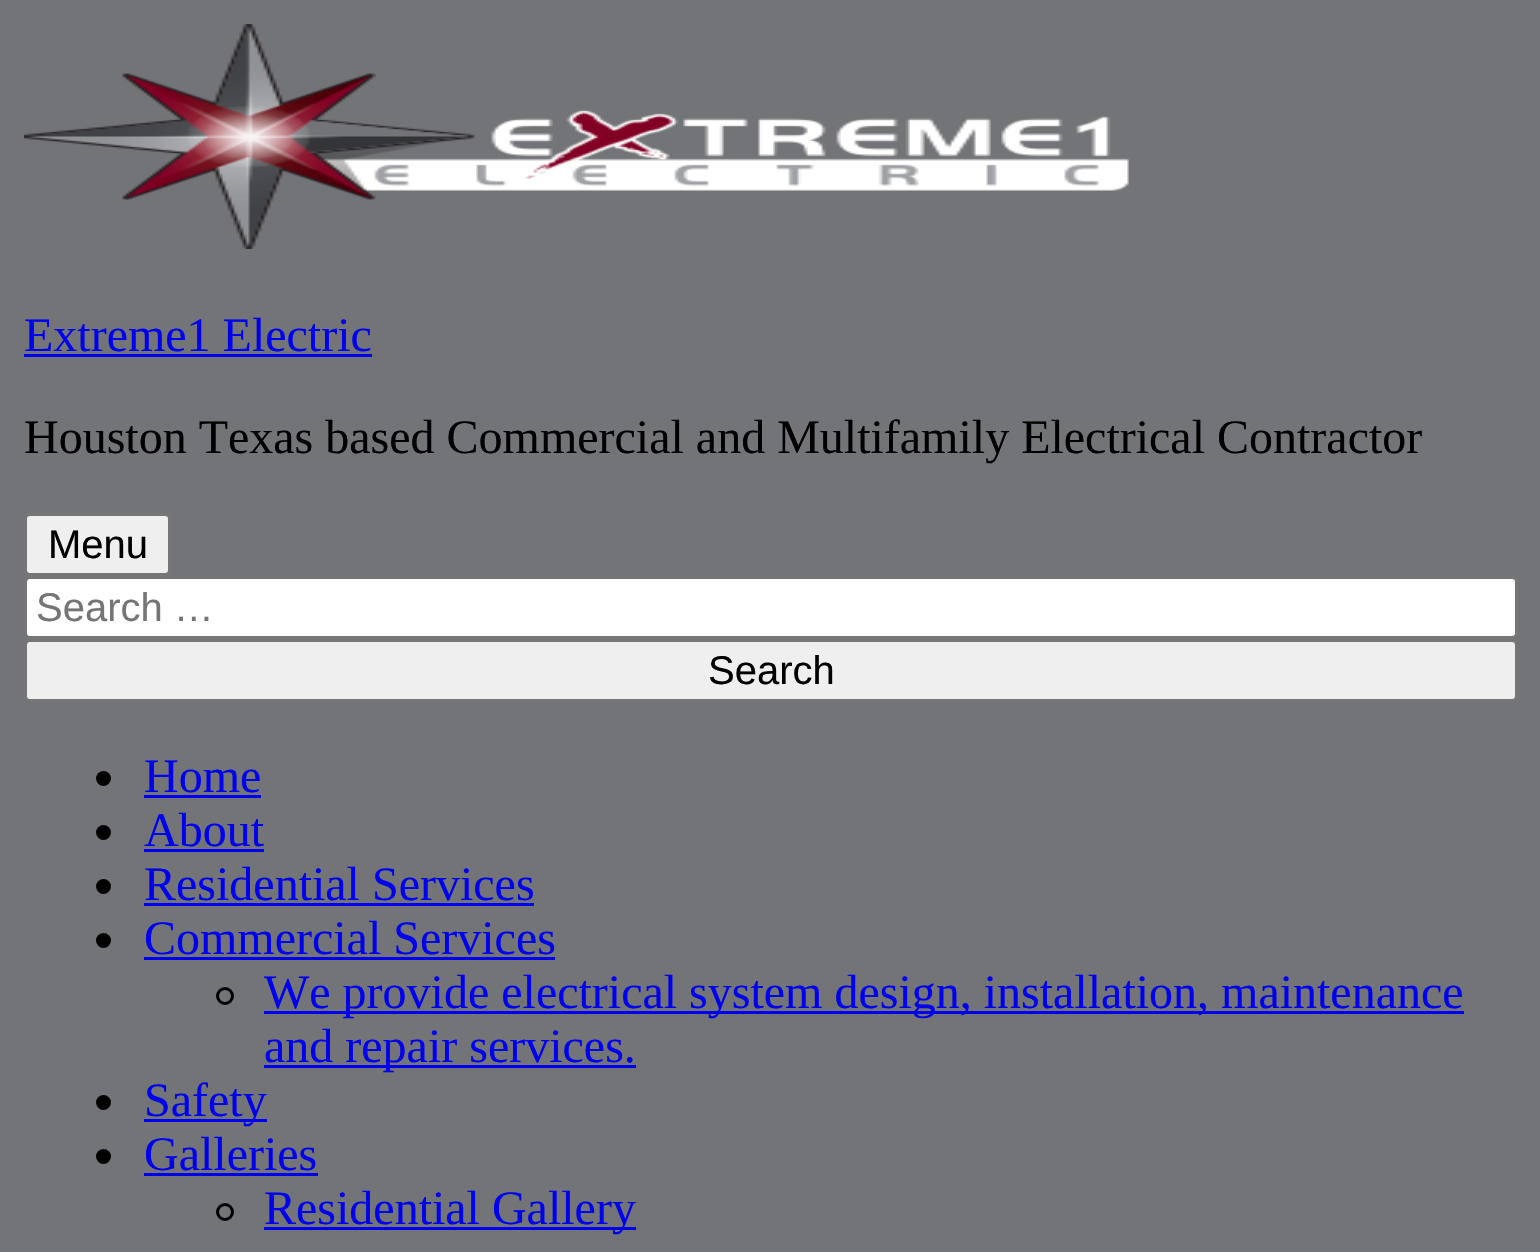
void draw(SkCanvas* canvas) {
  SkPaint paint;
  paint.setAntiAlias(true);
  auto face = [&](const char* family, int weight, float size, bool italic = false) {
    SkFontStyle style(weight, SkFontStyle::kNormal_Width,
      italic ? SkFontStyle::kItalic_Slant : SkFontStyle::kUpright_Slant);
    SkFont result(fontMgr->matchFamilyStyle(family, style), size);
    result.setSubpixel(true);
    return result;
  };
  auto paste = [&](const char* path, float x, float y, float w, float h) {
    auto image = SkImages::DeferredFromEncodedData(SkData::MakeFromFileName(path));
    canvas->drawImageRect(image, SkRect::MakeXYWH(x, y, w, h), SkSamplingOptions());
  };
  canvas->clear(0xff737477);
  paste("img/1.png", 24, 24, 1105, 225);
  paint.setColor(0xff0000ee);
  canvas->drawRect(SkRect::MakeXYWH(24, 354, 348, 3), paint);
  paint.setColor(0xffefefef);
  canvas->drawRoundRect(SkRect::MakeXYWH(25.5f, 514.5f, 144, 60), 4.5f, 4.5f, paint);
  paint.setStroke(true);
  paint.setStrokeWidth(3);
  paint.setColor(0xff767676);
  canvas->drawRoundRect(SkRect::MakeXYWH(25.5f, 514.5f, 144, 60), 4.5f, 4.5f, paint);
  paint.setStroke(false);
  paint.setColor(0xffffffff);
  canvas->drawRoundRect(SkRect::MakeXYWH(25.5f, 577.5f, 1491, 60), 4.5f, 4.5f, paint);
  paint.setStroke(true);
  paint.setColor(0xff767676);
  canvas->drawRoundRect(SkRect::MakeXYWH(25.5f, 577.5f, 1491, 60), 4.5f, 4.5f, paint);
  paint.setStroke(false);
  paint.setColor(0xffefefef);
  canvas->drawRoundRect(SkRect::MakeXYWH(25.5f, 640.5f, 1491, 60), 4.5f, 4.5f, paint);
  paint.setStroke(true);
  paint.setColor(0xff767676);
  canvas->drawRoundRect(SkRect::MakeXYWH(25.5f, 640.5f, 1491, 60), 4.5f, 4.5f, paint);
  paint.setStroke(false);
  paint.setColor(0xff000000);
  canvas->drawCircle(103.5f, 778.5f, 7.5f, paint);
  paint.setColor(0xff0000ee);
  canvas->drawRect(SkRect::MakeXYWH(144, 795, 117, 3), paint);
  paint.setColor(0xff000000);
  canvas->drawCircle(103.5f, 832.5f, 7.5f, paint);
  paint.setColor(0xff0000ee);
  canvas->drawRect(SkRect::MakeXYWH(144, 849, 120, 3), paint);
  paint.setColor(0xff000000);
  canvas->drawCircle(103.5f, 886.5f, 7.5f, paint);
  paint.setColor(0xff0000ee);
  canvas->drawRect(SkRect::MakeXYWH(144, 903, 390, 3), paint);
  paint.setColor(0xff000000);
  canvas->drawCircle(103.5f, 940.5f, 7.5f, paint);
  paint.setColor(0xff0000ee);
  canvas->drawRect(SkRect::MakeXYWH(144, 957, 411, 3), paint);
  paint.setStroke(true);
  paint.setColor(0xff000000);
  canvas->drawCircle(225, 996, 7.5f, paint);
  paint.setStroke(false);
  paint.setColor(0xff0000ee);
  canvas->drawRect(SkRect::MakeXYWH(264, 1011, 1200, 3), paint);
  canvas->drawRect(SkRect::MakeXYWH(264, 1065, 372, 3), paint);
  paint.setColor(0xff000000);
  canvas->drawCircle(103.5f, 1102.5f, 7.5f, paint);
  paint.setColor(0xff0000ee);
  canvas->drawRect(SkRect::MakeXYWH(144, 1119, 123, 3), paint);
  paint.setColor(0xff000000);
  canvas->drawCircle(103.5f, 1156.5f, 7.5f, paint);
  paint.setColor(0xff0000ee);
  canvas->drawRect(SkRect::MakeXYWH(144, 1173, 174, 3), paint);
  paint.setStroke(true);
  paint.setColor(0xff000000);
  canvas->drawCircle(225, 1212, 7.5f, paint);
  paint.setStroke(false);
  paint.setColor(0xff0000ee);
  canvas->drawRect(SkRect::MakeXYWH(264, 1227, 372, 3), paint);
  auto f0 = face("Liberation Serif", 400, 48);
  canvas->drawString("Extreme1 Electric", 24, 351, f0, paint);
  paint.setColor(0xff000000);
  canvas->drawString("Houston Texas based Commercial and Multifamily Electrical Contractor", 24, 453, f0, paint);
  auto f1 = face("Liberation Sans", 400, 40);
  canvas->drawString("Menu", 48, 558, f1, paint);
  paint.setColor(0xff757575);
  canvas->drawString("Search …", 36, 621, f1, paint);
  paint.setColor(0xff000000);
  canvas->drawString("Search", 708, 684, f1, paint);
  paint.setColor(0xff0000ee);
  {
    const struct { const char* s; float x, y; } items[] = {
      {"Home", 144, 792},
      {"About", 144, 846},
      {"Residential Services", 144, 900},
      {"Commercial Services", 144, 954},
      {"We provide electrical system design, installation, maintenance", 264, 1008},
      {"and repair services.", 264, 1062},
      {"Safety", 144, 1116},
      {"Galleries", 144, 1170},
      {"Residential Gallery", 264, 1224},
    };
    for (auto [s, x, y] : items) {
      canvas->drawString(s, x, y, f0, paint);
    }
  }
}
